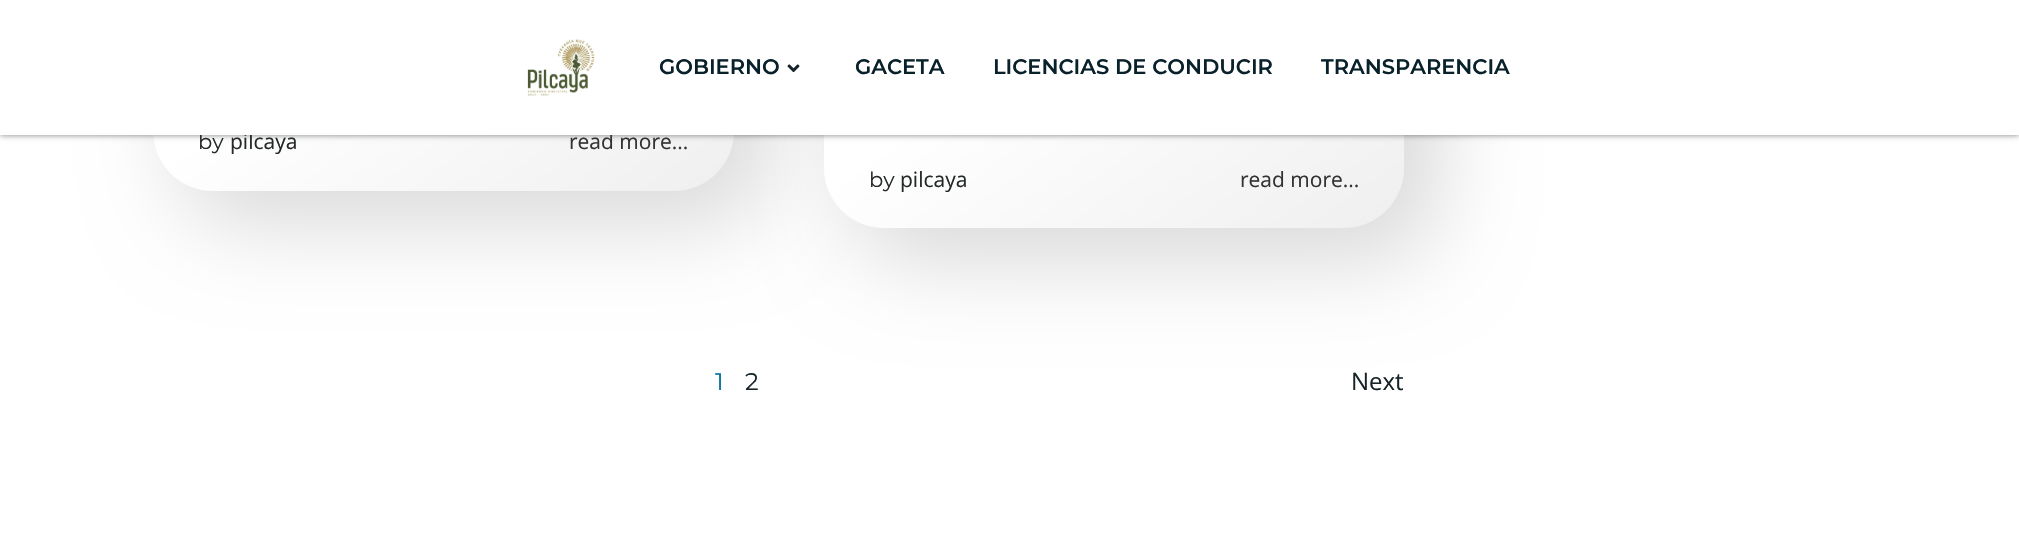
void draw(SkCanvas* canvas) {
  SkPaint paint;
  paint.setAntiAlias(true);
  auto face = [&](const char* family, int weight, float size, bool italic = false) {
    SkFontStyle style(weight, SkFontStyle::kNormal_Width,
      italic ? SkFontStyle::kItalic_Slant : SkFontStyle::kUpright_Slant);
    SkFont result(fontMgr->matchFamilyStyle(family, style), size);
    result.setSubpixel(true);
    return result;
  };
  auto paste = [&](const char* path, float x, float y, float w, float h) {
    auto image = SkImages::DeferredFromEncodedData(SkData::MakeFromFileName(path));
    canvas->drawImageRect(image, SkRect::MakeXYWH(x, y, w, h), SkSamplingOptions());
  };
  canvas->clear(0xffffffff);
  paint.setColor(0x26000000);
  paint.setMaskFilter(SkMaskFilter::MakeBlur(kNormal_SkBlurStyle, 45));
  canvas->drawRoundRect(SkRect::MakeXYWH(180, -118, 587, 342), 63, 63, paint);
  paint.setMaskFilter(nullptr);
  {
    const SkColor colors[] = {0xffffffff, 0xffefefef};
    const float stops[] = {0.42f, 1};
    const SkPoint ends[] = {{269, -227}, {618, 272}};
    paint.setShader(SkGradientShader::MakeLinear(ends, colors, stops, 2, SkTileMode::kClamp));
    paint.setAlpha(255);
  }
  canvas->drawRoundRect(SkRect::MakeXYWH(153, -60, 581, 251), 60, 60, paint);
  paint.setShader(nullptr);
  paint.setColor(0x26000000);
  paint.setMaskFilter(SkMaskFilter::MakeBlur(kNormal_SkBlurStyle, 45));
  canvas->drawRoundRect(SkRect::MakeXYWH(851, -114, 586, 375), 63, 63, paint);
  paint.setMaskFilter(nullptr);
  {
    const SkColor colors[] = {0xffffffff, 0xffefefef};
    const float stops[] = {0.42f, 1};
    const SkPoint ends[] = {{932, -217}, {1296, 304}};
    paint.setShader(SkGradientShader::MakeLinear(ends, colors, stops, 2, SkTileMode::kClamp));
    paint.setAlpha(255);
  }
  canvas->drawRoundRect(SkRect::MakeXYWH(824, -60, 580, 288), 60, 60, paint);
  paint.setShader(nullptr);
  paint.setColor(0x80000000);
  paint.setMaskFilter(SkMaskFilter::MakeBlur(kNormal_SkBlurStyle, 3));
  canvas->drawRect(SkRect::MakeXYWH(0, 0, 2019, 135), paint);
  paint.setMaskFilter(nullptr);
  auto f0 = face("Montserrat", 400, 21);
  paint.setColor(0xff25292a);
  canvas->drawString("by", 198, 149, f0, paint);
  auto f1 = face("Open Sans", 400, 21);
  canvas->drawString("pilcaya", 230, 149, f1, paint);
  paint.setColor(0xff333333);
  canvas->drawString("read more...", 569, 149, f1, paint);
  paint.setColor(0xffffffff);
  canvas->drawRect(SkRect::MakeXYWH(0, 0, 2019, 135), paint);
  auto f2 = face("Montserrat", 600, 21);
  paint.setColor(0xff09212a);
  {
    const struct { const char* s; float x, y; } items[] = {
      {"TRANSPARENCIA", 1321, 74},
      {"LICENCIAS DE CONDUCIR", 993, 74},
      {"GACETA", 855, 74},
    };
    for (auto [s, x, y] : items) {
      canvas->drawString(s, x, y, f2, paint);
    }
  }
  paste("img/2.png", 787, 64, 13, 9);
  canvas->drawString("GOBIERNO", 659, 74, f2, paint);
  paste("img/1.png", 527, 39, 68, 57);
  paint.setColor(0xff25292a);
  canvas->drawString("by", 869, 187, f0, paint);
  canvas->drawString("pilcaya", 900, 187, f1, paint);
  paint.setColor(0xff333333);
  canvas->drawString("read more...", 1240, 187, f1, paint);
  auto f3 = face("Montserrat", 400, 24);
  paint.setColor(0xff026e9f);
  canvas->drawString("1", 715, 390, f3, paint);
  paint.setColor(0xff17252a);
  canvas->drawString("2", 745, 390, f3, paint);
  auto f4 = face("Open Sans", 400, 24);
  canvas->drawString("Next", 1351, 390, f4, paint);
}
